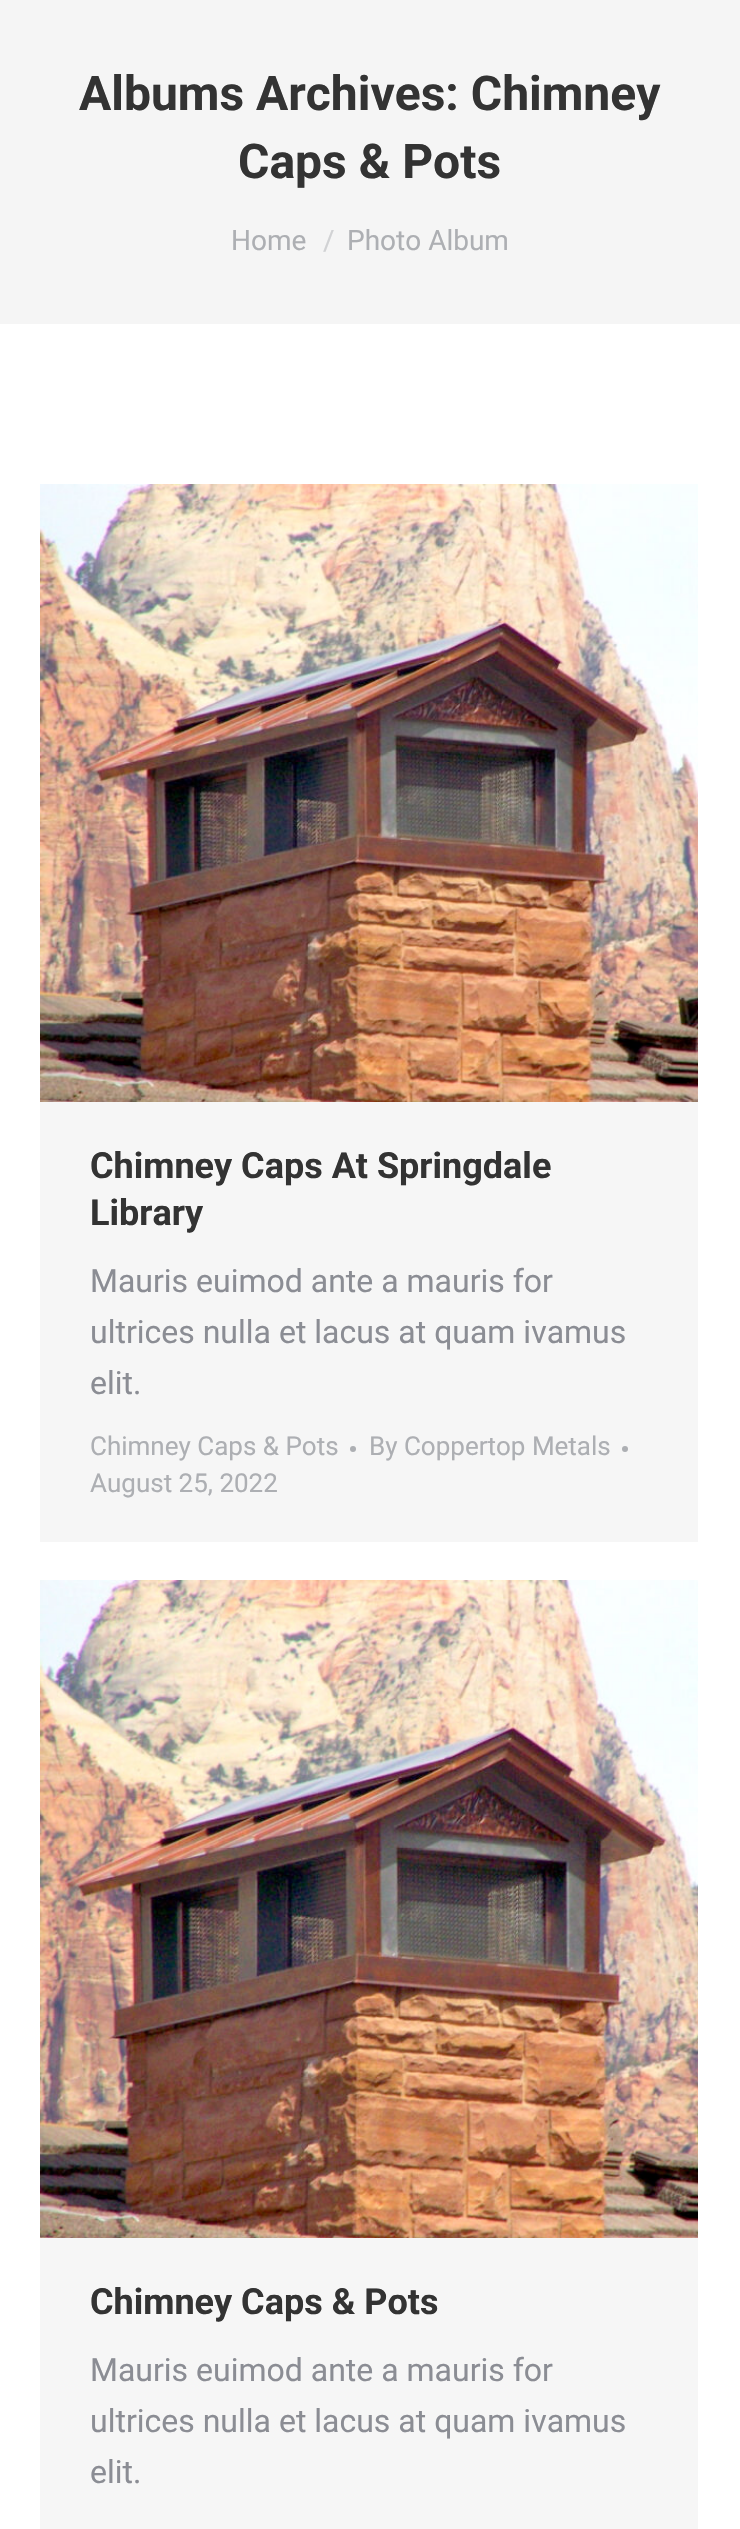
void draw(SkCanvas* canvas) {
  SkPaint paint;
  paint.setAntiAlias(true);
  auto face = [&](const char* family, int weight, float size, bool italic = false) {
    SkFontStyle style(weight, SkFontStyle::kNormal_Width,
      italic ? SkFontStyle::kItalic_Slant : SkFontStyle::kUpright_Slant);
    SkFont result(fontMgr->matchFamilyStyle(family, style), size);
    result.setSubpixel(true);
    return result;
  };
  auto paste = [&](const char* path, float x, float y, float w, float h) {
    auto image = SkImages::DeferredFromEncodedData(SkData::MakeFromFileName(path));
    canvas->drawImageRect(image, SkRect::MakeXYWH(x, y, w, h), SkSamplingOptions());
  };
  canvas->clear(0xffffffff);
  paint.setColor(0xfff5f5f5);
  canvas->drawRect(SkRect::MakeXYWH(0, 0, 740, 324), paint);
  paint.setColor(0xfff6f6f6);
  canvas->drawRect(SkRect::MakeXYWH(40, 1102, 658, 440), paint);
  paste("img/1.png", 40, 484, 658, 618);
  paint.setColor(0xffadafb3);
  canvas->drawCircle(353, 1449, 3, paint);
  canvas->drawCircle(625, 1449, 3, paint);
  paint.setColor(0xfff6f6f6);
  canvas->drawRect(SkRect::MakeXYWH(40, 2238, 658, 291), paint);
  paste("img/2.png", 40, 1580, 658, 658);
  auto f0 = face("Roboto", 700, 48);
  paint.setColor(0xff333333);
  canvas->drawString("Albums Archives: Chimney", 79, 110, f0, paint);
  canvas->drawString("Caps & Pots", 238, 178, f0, paint);
  auto f1 = face("Roboto", 400, 28);
  paint.setColor(0xffadafb3);
  canvas->drawString("Home", 231, 250, f1, paint);
  paint.setColor(0xffd1d2d4);
  canvas->drawString("/", 323, 250, f1, paint);
  paint.setColor(0xffadafb3);
  canvas->drawString("Photo Album", 347, 250, f1, paint);
  auto f2 = face("Roboto", 700, 36);
  paint.setColor(0xff333333);
  canvas->drawString("Chimney Caps At Springdale", 90, 1178, f2, paint);
  canvas->drawString("Library", 90, 1225, f2, paint);
  auto f3 = face("Roboto", 400, 32);
  paint.setColor(0xff8b8d94);
  {
    const struct { const char* s; float x, y; } items[] = {
      {"Mauris euimod ante a mauris for", 90, 1292},
      {"ultrices nulla et lacus at quam ivamus", 90, 1343},
      {"elit.", 90, 1394},
    };
    for (auto [s, x, y] : items) {
      canvas->drawString(s, x, y, f3, paint);
    }
  }
  auto f4 = face("Roboto", 400, 26);
  paint.setColor(0xffadafb3);
  {
    const struct { const char* s; float x, y; } items[] = {
      {"Chimney Caps & Pots", 90, 1455},
      {"By Coppertop Metals", 369, 1455},
      {"August 25, 2022", 90, 1492},
    };
    for (auto [s, x, y] : items) {
      canvas->drawString(s, x, y, f4, paint);
    }
  }
  paint.setColor(0xff333333);
  canvas->drawString("Chimney Caps & Pots", 90, 2314, f2, paint);
  paint.setColor(0xff8b8d94);
  {
    const struct { const char* s; float x, y; } items[] = {
      {"Mauris euimod ante a mauris for", 90, 2381},
      {"ultrices nulla et lacus at quam ivamus", 90, 2432},
      {"elit.", 90, 2483},
    };
    for (auto [s, x, y] : items) {
      canvas->drawString(s, x, y, f3, paint);
    }
  }
}
